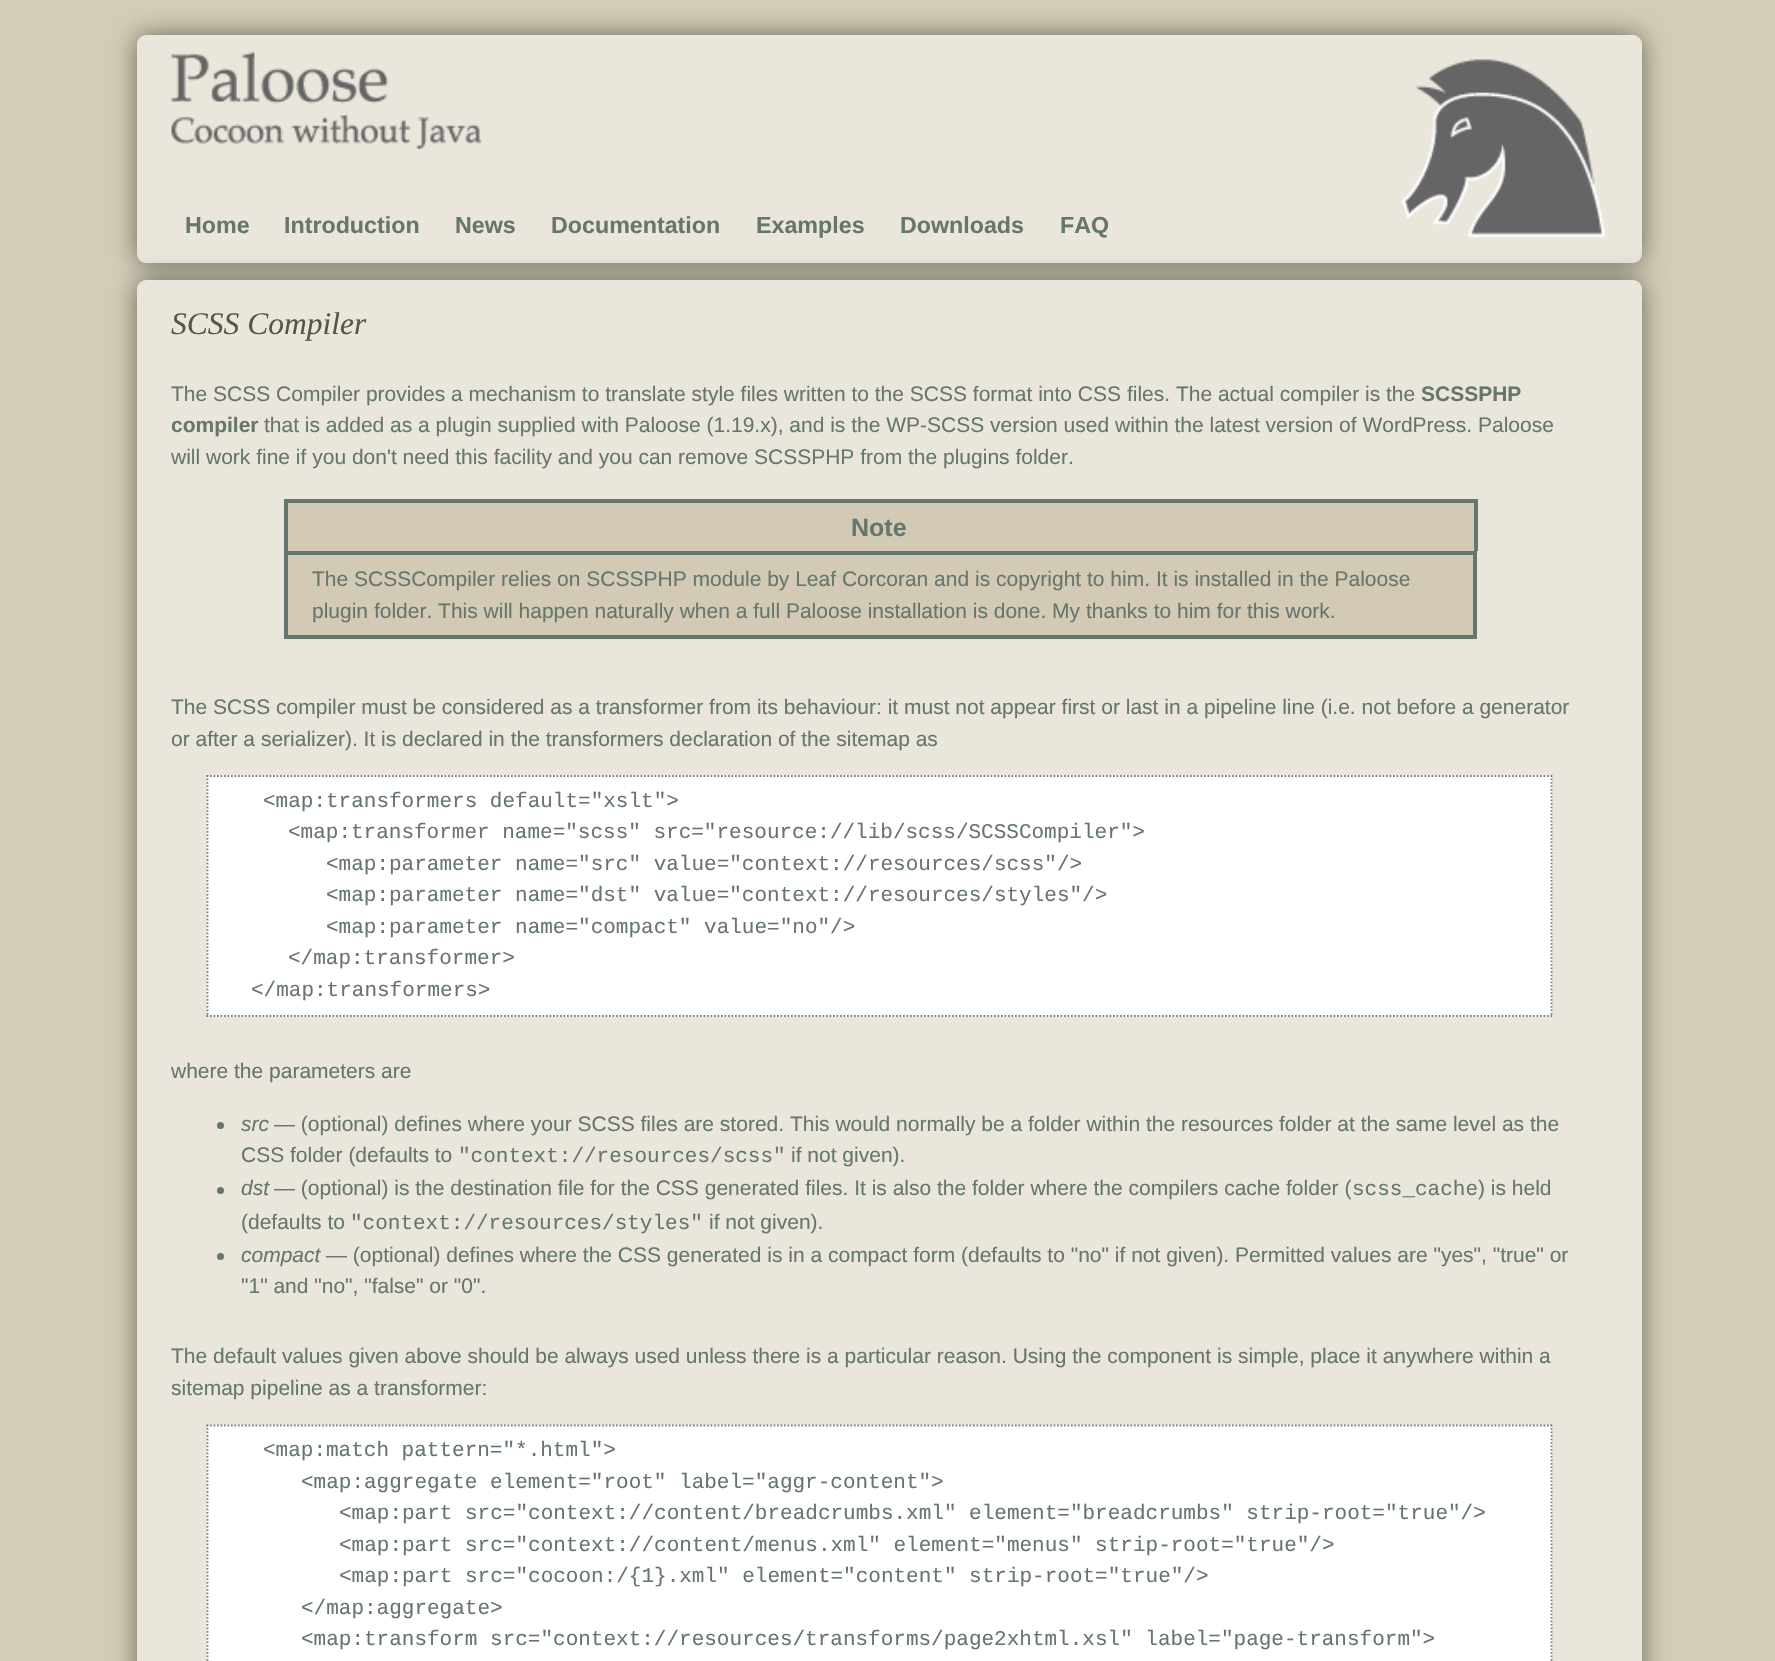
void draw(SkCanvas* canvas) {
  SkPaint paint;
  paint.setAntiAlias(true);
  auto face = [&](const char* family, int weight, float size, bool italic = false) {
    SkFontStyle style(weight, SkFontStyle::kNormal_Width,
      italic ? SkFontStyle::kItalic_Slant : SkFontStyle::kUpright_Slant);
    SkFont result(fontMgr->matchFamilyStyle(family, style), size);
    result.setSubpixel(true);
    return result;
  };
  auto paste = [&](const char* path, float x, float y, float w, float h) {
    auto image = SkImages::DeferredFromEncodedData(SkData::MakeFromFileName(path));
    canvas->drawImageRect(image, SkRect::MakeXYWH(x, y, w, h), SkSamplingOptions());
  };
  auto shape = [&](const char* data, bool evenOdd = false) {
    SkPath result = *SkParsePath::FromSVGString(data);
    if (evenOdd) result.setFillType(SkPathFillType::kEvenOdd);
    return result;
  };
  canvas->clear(0xffd3ccb6);
  paint.setColor(0x80000000);
  paint.setMaskFilter(SkMaskFilter::MakeBlur(kNormal_SkBlurStyle, 13));
  canvas->drawRoundRect(SkRect::MakeXYWH(137, 35, 1505, 228), 9, 9, paint);
  paint.setMaskFilter(nullptr);
  paint.setColor(0xffeae6dc);
  canvas->drawRoundRect(SkRect::MakeXYWH(137, 35, 1505, 228), 9, 9, paint);
  paste("img/1.png", 171, 52, 311, 97);
  paste("img/2.png", 1401, 59, 205, 179);
  paint.setColor(0x80000000);
  paint.setMaskFilter(SkMaskFilter::MakeBlur(kNormal_SkBlurStyle, 13));
  canvas->drawRoundRect(SkRect::MakeXYWH(137, 280, 1505, 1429), 9, 9, paint);
  paint.setMaskFilter(nullptr);
  paint.setColor(0xffeae6dc);
  canvas->drawRoundRect(SkRect::MakeXYWH(137, 280, 1505, 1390), 9, 9, paint);
  {
    const struct { float x, y, w, h; SkColor color; } items[] = {
      {288, 503, 1186, 48, 0xffd2cab5},
      {284, 499, 1193, 4, 0xff66766d},
      {1474, 499, 4, 52, 0xff66766d},
      {284, 499, 4, 52, 0xff66766d},
    };
    for (auto [x, y, w, h, color] : items) {
      paint.setColor(color);
      canvas->drawRect(SkRect::MakeXYWH(x, y, w, h), paint);
    }
  }
  paint.setColor(0xffd2cab5);
  canvas->drawRect(SkRect::MakeXYWH(286, 553, 1189, 84), paint);
  paint.setStroke(true);
  paint.setStrokeWidth(4);
  paint.setColor(0xff66766d);
  canvas->drawRect(SkRect::MakeXYWH(286, 553, 1189, 84), paint);
  paint.setStroke(false);
  paint.setColor(0xffffffff);
  canvas->drawRect(SkRect::MakeXYWH(207, 775, 1345, 242), paint);
  paint.setStroke(true);
  paint.setStrokeWidth(1.8f);
  paint.setColor(0xff808080);
  paint.setPathEffect(SkDashPathEffect::Make({{1.75f, 1.75f}}, 0));
  canvas->drawPath(shape("M206.5 776H1552"), paint);
  paint.setPathEffect(nullptr);
  paint.setPathEffect(SkDashPathEffect::Make({{1.75f, 1.75f}}, 0));
  canvas->drawPath(shape("M1551.5 775V1017"), paint);
  paint.setPathEffect(nullptr);
  paint.setPathEffect(SkDashPathEffect::Make({{1.75f, 1.75f}}, 0));
  canvas->drawPath(shape("M206.5 1016H1552"), paint);
  paint.setPathEffect(nullptr);
  paint.setPathEffect(SkDashPathEffect::Make({{1.75f, 1.75f}}, 0));
  canvas->drawPath(shape("M207.5 775V1017"), paint);
  paint.setPathEffect(nullptr);
  paint.setStroke(false);
  paint.setColor(0xff66766d);
  canvas->drawCircle(220.5f, 1125.5f, 3.5f, paint);
  canvas->drawCircle(220.5f, 1190.5f, 3.5f, paint);
  canvas->drawCircle(220.5f, 1256.5f, 3.5f, paint);
  paint.setColor(0xffffffff);
  canvas->drawRect(SkRect::MakeXYWH(207, 1425, 1345, 236), paint);
  paint.setStroke(true);
  paint.setColor(0xff808080);
  paint.setPathEffect(SkDashPathEffect::Make({{1.75f, 1.75f}}, 0));
  canvas->drawPath(shape("M206.5 1425.5H1552"), paint);
  paint.setPathEffect(nullptr);
  paint.setPathEffect(SkDashPathEffect::Make({{1.75f, 1.75f}}, 0));
  canvas->drawPath(shape("M1551.5 1424.5V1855"), paint);
  paint.setPathEffect(nullptr);
  paint.setPathEffect(SkDashPathEffect::Make({{1.75f, 1.75f}}, 0));
  canvas->drawPath(shape("M207.5 1424.5V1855"), paint);
  paint.setPathEffect(nullptr);
  auto f0 = face("Liberation Sans", 700, 23.25f);
  paint.setStroke(false);
  paint.setColor(0xff66766d);
  {
    const struct { const char* s; float x, y; } items[] = {
      {"Home", 185, 233},
      {"Introduction", 284, 233},
      {"News", 455, 233},
      {"Documentation", 551, 233},
      {"Examples", 756, 233},
      {"Downloads", 900, 233},
      {"FAQ", 1060, 233},
    };
    for (auto [s, x, y] : items) {
      canvas->drawString(s, x, y, f0, paint);
    }
  }
  auto f1 = face("Liberation Serif", 400, 31.5f, true);
  paint.setColor(0xff56554a);
  canvas->drawString("SCSS Compiler", 171, 334, f1, paint);
  auto f2 = face("Liberation Sans", 400, 21);
  paint.setColor(0xff66766d);
  canvas->drawString("The SCSS Compiler provides a mechanism to translate style files written to the SCSS format into CSS files. The actual compiler is the", 171, 401, f2, paint);
  auto f3 = face("Liberation Sans", 700, 21);
  canvas->drawString("SCSSPHP", 1421, 401, f3, paint);
  canvas->drawString("compiler", 171, 432, f3, paint);
  canvas->drawString("that is added as a plugin supplied with Paloose (1.19.x), and is the WP-SCSS version used within the latest version of WordPress. Paloose", 264, 432, f2, paint);
  canvas->drawString("will work fine if you don't need this facility and you can remove SCSSPHP from the plugins folder.", 171, 464, f2, paint);
  auto f4 = face("Liberation Sans", 700, 25);
  canvas->drawString("Note", 851, 536, f4, paint);
  {
    const struct { const char* s; float x, y; } items[] = {
      {"The SCSSCompiler relies on SCSSPHP module by Leaf Corcoran and is copyright to him. It is installed in the Paloose", 312, 586},
      {"plugin folder. This will happen naturally when a full Paloose installation is done. My thanks to him for this work.", 312, 618},
      {"The SCSS compiler must be considered as a transformer from its behaviour: it must not appear first or last in a pipeline line (i.e. not before a generator", 171, 714},
      {"or after a serializer). It is declared in the transformers declaration of the sitemap as", 171, 746},
    };
    for (auto [s, x, y] : items) {
      canvas->drawString(s, x, y, f2, paint);
    }
  }
  auto f5 = face("Liberation Mono", 400, 21);
  {
    const struct { const char* s; float x, y; } items[] = {
      {"<map:transformers default=\"xslt\">", 263, 807},
      {"<map:transformer name=\"scss\" src=\"resource://lib/scss/SCSSCompiler\">", 288, 838},
      {"<map:parameter name=\"src\" value=\"context://resources/scss\"/>", 326, 870},
      {"<map:parameter name=\"dst\" value=\"context://resources/styles\"/>", 326, 901},
      {"<map:parameter name=\"compact\" value=\"no\"/>", 326, 933},
      {"</map:transformer>", 288, 964},
      {"</map:transformers>", 251, 996},
    };
    for (auto [s, x, y] : items) {
      canvas->drawString(s, x, y, f5, paint);
    }
  }
  canvas->drawString("where the parameters are", 171, 1078, f2, paint);
  auto f6 = face("Liberation Sans", 400, 21, true);
  canvas->drawString("src", 241, 1131, f6, paint);
  canvas->drawString("— (optional) defines where your SCSS files are stored. This would normally be a folder within the resources folder at the same level as the", 274, 1131, f2, paint);
  canvas->drawString("CSS folder (defaults to", 241, 1162, f2, paint);
  canvas->drawString("\"context://resources/scss\"", 458, 1162, f5, paint);
  canvas->drawString("if not given).", 791, 1162, f2, paint);
  canvas->drawString("dst", 241, 1195, f6, paint);
  canvas->drawString("— (optional) is the destination file for the CSS generated files. It is also the folder where the compilers cache folder (", 274, 1195, f2, paint);
  canvas->drawString("scss_cache", 1352, 1195, f5, paint);
  canvas->drawString(") is held", 1478, 1195, f2, paint);
  canvas->drawString("(defaults to", 241, 1229, f2, paint);
  canvas->drawString("\"context://resources/styles\"", 350, 1229, f5, paint);
  canvas->drawString("if not given).", 709, 1229, f2, paint);
  canvas->drawString("compact", 241, 1262, f6, paint);
  {
    const struct { const char* s; float x, y; } items[] = {
      {"— (optional) defines where the CSS generated is in a compact form (defaults to \"no\" if not given). Permitted values are \"yes\", \"true\" or", 326, 1262},
      {"\"1\" and \"no\", \"false\" or \"0\".", 241, 1293},
      {"The default values given above should be always used unless there is a particular reason. Using the component is simple, place it anywhere within a", 171, 1363},
      {"sitemap pipeline as a transformer:", 171, 1395},
    };
    for (auto [s, x, y] : items) {
      canvas->drawString(s, x, y, f2, paint);
    }
  }
  {
    const struct { const char* s; float x, y; } items[] = {
      {"<map:match pattern=\"*.html\">", 263, 1456},
      {"<map:aggregate element=\"root\" label=\"aggr-content\">", 301, 1488},
      {"<map:part src=\"context://content/breadcrumbs.xml\" element=\"breadcrumbs\" strip-root=\"true\"/>", 339, 1519},
      {"<map:part src=\"context://content/menus.xml\" element=\"menus\" strip-root=\"true\"/>", 339, 1551},
      {"<map:part src=\"cocoon:/{1}.xml\" element=\"content\" strip-root=\"true\"/>", 339, 1582},
      {"</map:aggregate>", 301, 1614},
      {"<map:transform src=\"context://resources/transforms/page2xhtml.xsl\" label=\"page-transform\">", 301, 1645},
    };
    for (auto [s, x, y] : items) {
      canvas->drawString(s, x, y, f5, paint);
    }
  }
}
